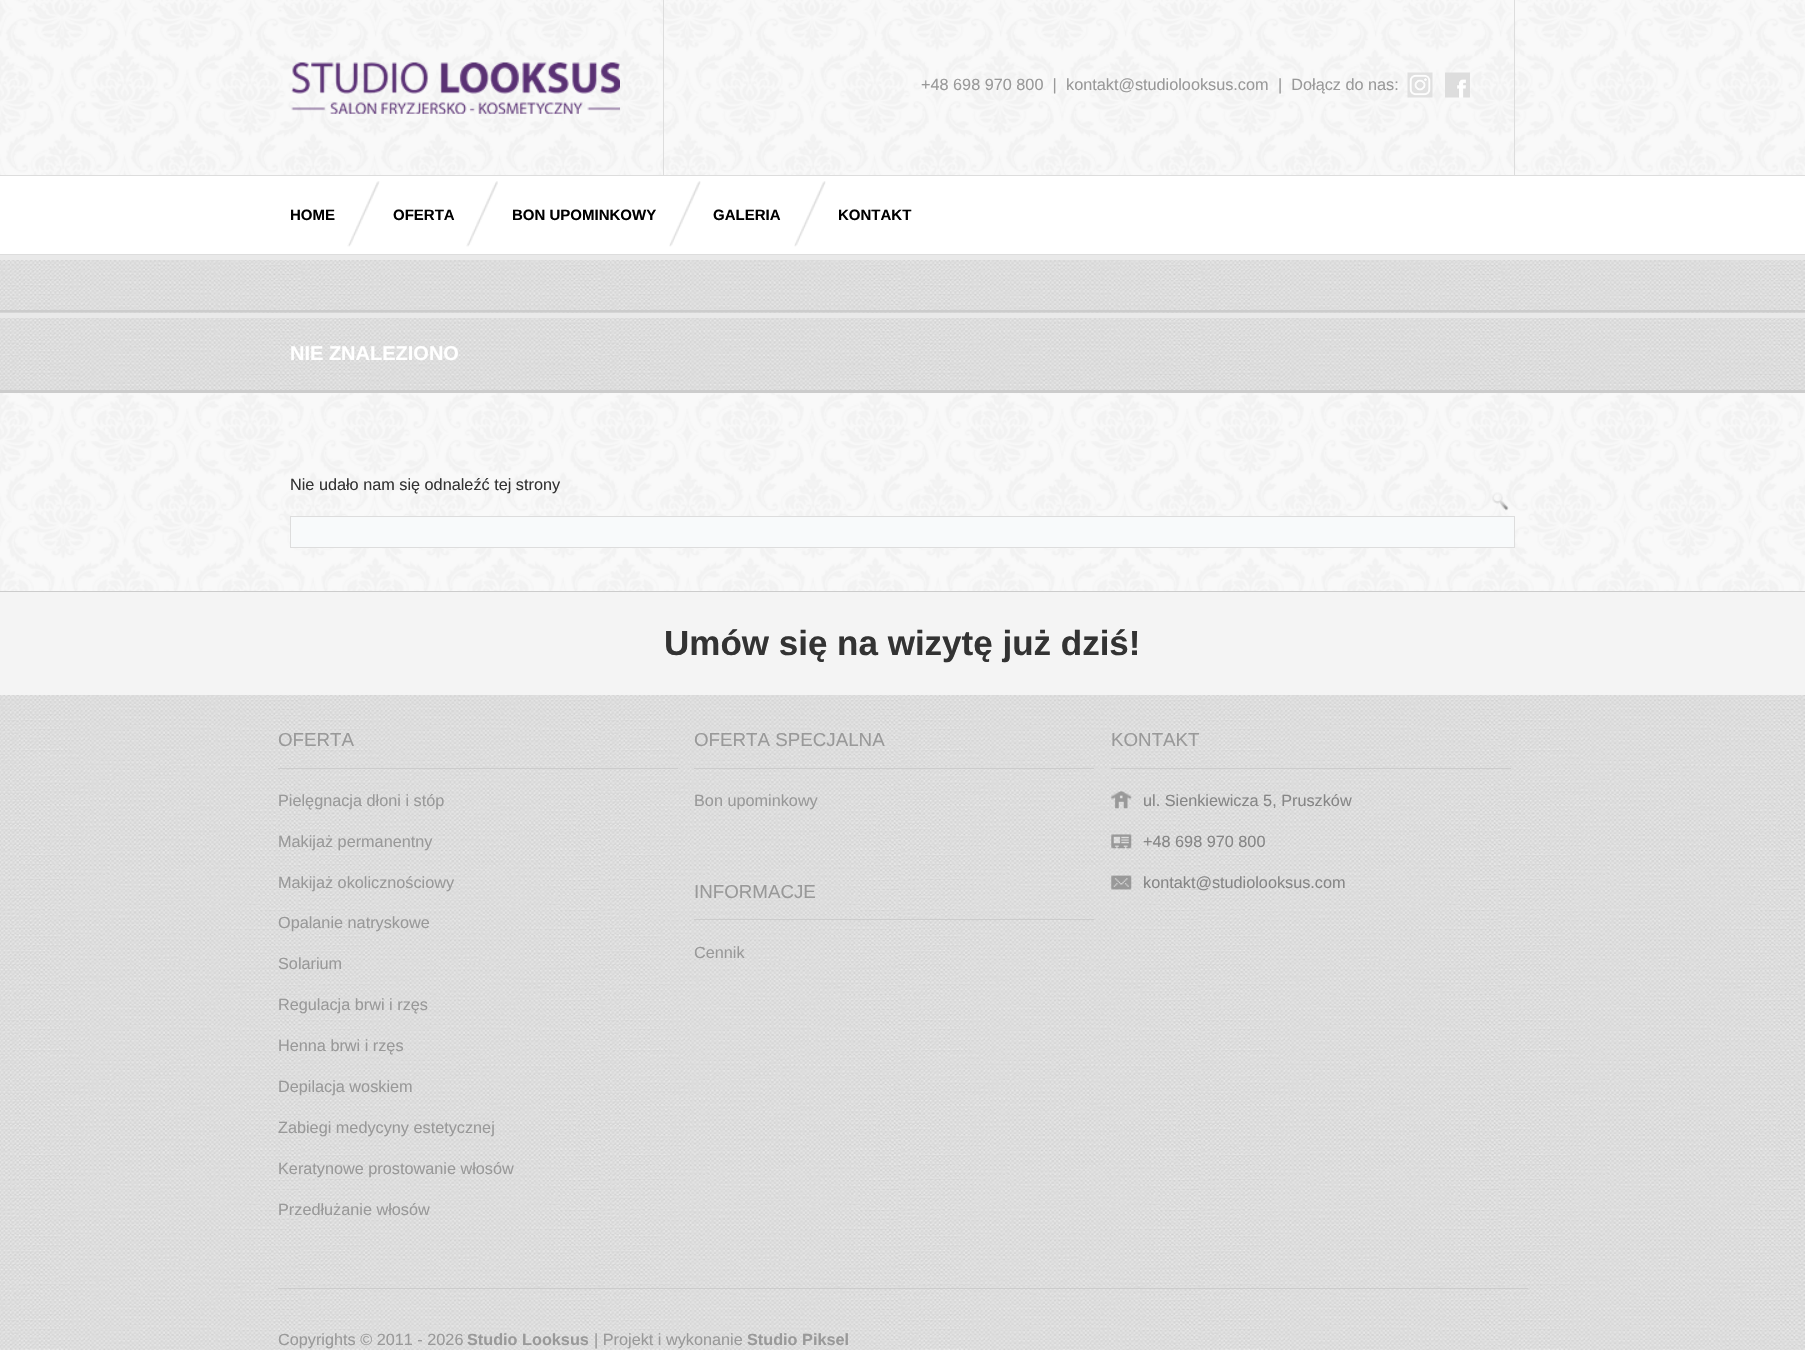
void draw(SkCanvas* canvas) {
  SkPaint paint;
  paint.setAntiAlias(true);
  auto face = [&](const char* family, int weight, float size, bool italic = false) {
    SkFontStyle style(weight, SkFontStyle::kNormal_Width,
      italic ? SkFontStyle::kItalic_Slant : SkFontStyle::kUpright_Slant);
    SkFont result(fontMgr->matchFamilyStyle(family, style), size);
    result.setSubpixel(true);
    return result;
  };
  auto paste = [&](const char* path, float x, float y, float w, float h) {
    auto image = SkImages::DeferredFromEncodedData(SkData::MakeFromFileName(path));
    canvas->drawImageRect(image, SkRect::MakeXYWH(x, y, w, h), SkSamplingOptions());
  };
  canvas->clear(0xfffafafa);
  paste("img/1.png", 0, 0, 1805, 591);
  paste("img/2.png", 291, 62, 329, 52);
  paint.setColor(0xffdddddd);
  canvas->drawRect(SkRect::MakeXYWH(1514, 0, 1, 175), paint);
  canvas->drawRect(SkRect::MakeXYWH(663, 0, 1, 175), paint);
  paste("img/3.png", 1407, 72, 26, 26);
  paste("img/4.png", 1445, 72, 25, 26);
  {
    const struct { float x, y, w, h; SkColor color; } items[] = {
      {0, 176, 1805, 78, 0xffffffff},
      {0, 175, 1805, 1, 0xffdddddd},
      {0, 254, 1805, 1, 0xffdddddd},
    };
    for (auto [x, y, w, h, color] : items) {
      paint.setColor(color);
      canvas->drawRect(SkRect::MakeXYWH(x, y, w, h), paint);
    }
  }
  paste("img/5.png", 347, 181, 33, 66);
  paste("img/6.png", 466, 181, 32, 66);
  paste("img/7.png", 669, 181, 32, 66);
  paste("img/8.png", 794, 181, 32, 66);
  paste("img/9.png", 0, 260, 1805, 50);
  paint.setColor(0xffe9e9e9);
  canvas->drawRect(SkRect::MakeXYWH(0, 255, 1805, 5), paint);
  paint.setColor(0xffcccccc);
  canvas->drawRect(SkRect::MakeXYWH(0, 310, 1805, 3), paint);
  paste("img/10.png", 0, 312, 1805, 78);
  paint.setColor(0xffe9e9e9);
  canvas->drawRect(SkRect::MakeXYWH(0, 313, 1805, 5), paint);
  paint.setColor(0xffcccccc);
  canvas->drawRect(SkRect::MakeXYWH(0, 390, 1805, 3), paint);
  paste("img/11.png", 1492, 492, 17, 19);
  paint.setColor(0xfff8fafb);
  canvas->drawRect(SkRect::MakeXYWH(290.5f, 516.5f, 1224, 31), paint);
  paint.setStroke(true);
  paint.setStrokeWidth(1);
  paint.setColor(0xffdddddd);
  canvas->drawRect(SkRect::MakeXYWH(290.5f, 516.5f, 1224, 31), paint);
  paint.setStroke(false);
  paint.setColor(0xfff4f4f4);
  canvas->drawRect(SkRect::MakeXYWH(0, 592, 1805, 103), paint);
  paint.setColor(0xffcccccc);
  canvas->drawRect(SkRect::MakeXYWH(0, 591, 1805, 1), paint);
  paste("img/12.png", 0, 695, 1805, 655);
  {
    const struct { float x, y, w, h; SkColor color; } items[] = {
      {278, 768, 400, 1, 0xffcccccc},
      {694, 768, 400, 1, 0xffcccccc},
      {694, 919, 400, 1, 0xffcccccc},
      {1111, 768, 400, 1, 0xffcccccc},
    };
    for (auto [x, y, w, h, color] : items) {
      paint.setColor(color);
      canvas->drawRect(SkRect::MakeXYWH(x, y, w, h), paint);
    }
  }
  paste("img/13.png", 1111, 791, 21, 18);
  paste("img/14.png", 1111, 834, 21, 15);
  paste("img/15.png", 1111, 875, 21, 15);
  canvas->drawRect(SkRect::MakeXYWH(278, 1288, 1250, 1), paint);
  auto f0 = face("Liberation Sans", 400, 16.25f);
  paint.setColor(0xff999999);
  {
    const struct { const char* s; float x, y; } items[] = {
      {"+48 698 970 800  |", 921, 90},
      {"kontakt@studiolooksus.com", 1066, 90},
      {"|  Dołącz do nas:", 1278, 90},
    };
    for (auto [s, x, y] : items) {
      canvas->drawString(s, x, y, f0, paint);
    }
  }
  auto f1 = face("Liberation Sans", 700, 15);
  paint.setColor(0xff000000);
  {
    const struct { const char* s; float x, y; } items[] = {
      {"HOME", 290, 220},
      {"OFERTA", 393, 220},
      {"BON UPOMINKOWY", 512, 220},
      {"GALERIA", 713, 220},
      {"KONTAKT", 838, 220},
    };
    for (auto [s, x, y] : items) {
      canvas->drawString(s, x, y, f1, paint);
    }
  }
  auto f2 = face("Liberation Sans", 700, 20);
  paint.setColor(0xffffffff);
  canvas->drawString("NIE ZNALEZIONO", 290, 360, f2, paint);
  paint.setColor(0xff333333);
  canvas->drawString("Nie udało nam się odnaleźć tej strony", 290, 490, f0, paint);
  auto f3 = face("Liberation Sans", 700, 35);
  canvas->drawString("Umów się na wizytę już dziś!", 664, 655, f3, paint);
  auto f4 = face("Liberation Sans", 400, 18.75f);
  paint.setColor(0xff999999);
  canvas->drawString("OFERTA", 278, 746, f4, paint);
  {
    const struct { const char* s; float x, y; } items[] = {
      {"Pielęgnacja dłoni i stóp", 278, 806},
      {"Makijaż permanentny", 278, 847},
      {"Makijaż okolicznościowy", 278, 888},
      {"Opalanie natryskowe", 278, 928},
      {"Solarium", 278, 969},
      {"Regulacja brwi i rzęs", 278, 1010},
      {"Henna brwi i rzęs", 278, 1051},
      {"Depilacja woskiem", 278, 1092},
      {"Zabiegi medycyny estetycznej", 278, 1133},
      {"Keratynowe prostowanie włosów", 278, 1174},
      {"Przedłużanie włosów", 278, 1215},
    };
    for (auto [s, x, y] : items) {
      canvas->drawString(s, x, y, f0, paint);
    }
  }
  canvas->drawString("OFERTA SPECJALNA", 694, 746, f4, paint);
  canvas->drawString("Bon upominkowy", 694, 806, f0, paint);
  canvas->drawString("INFORMACJE", 694, 898, f4, paint);
  canvas->drawString("Cennik", 694, 958, f0, paint);
  canvas->drawString("KONTAKT", 1111, 746, f4, paint);
  paint.setColor(0xff868686);
  {
    const struct { const char* s; float x, y; } items[] = {
      {"ul. Sienkiewicza 5, Pruszków", 1143, 806},
      {"+48 698 970 800", 1143, 847},
      {"kontakt@studiolooksus.com", 1143, 888},
    };
    for (auto [s, x, y] : items) {
      canvas->drawString(s, x, y, f0, paint);
    }
  }
  paint.setColor(0xff999999);
  canvas->drawString("Copyrights © 2011 - 2026", 278, 1345, f0, paint);
  auto f5 = face("Liberation Sans", 700, 16.25f);
  canvas->drawString("Studio Looksus", 467, 1345, f5, paint);
  canvas->drawString("| Projekt i wykonanie", 594, 1345, f0, paint);
  canvas->drawString("Studio Piksel", 747, 1345, f5, paint);
}
